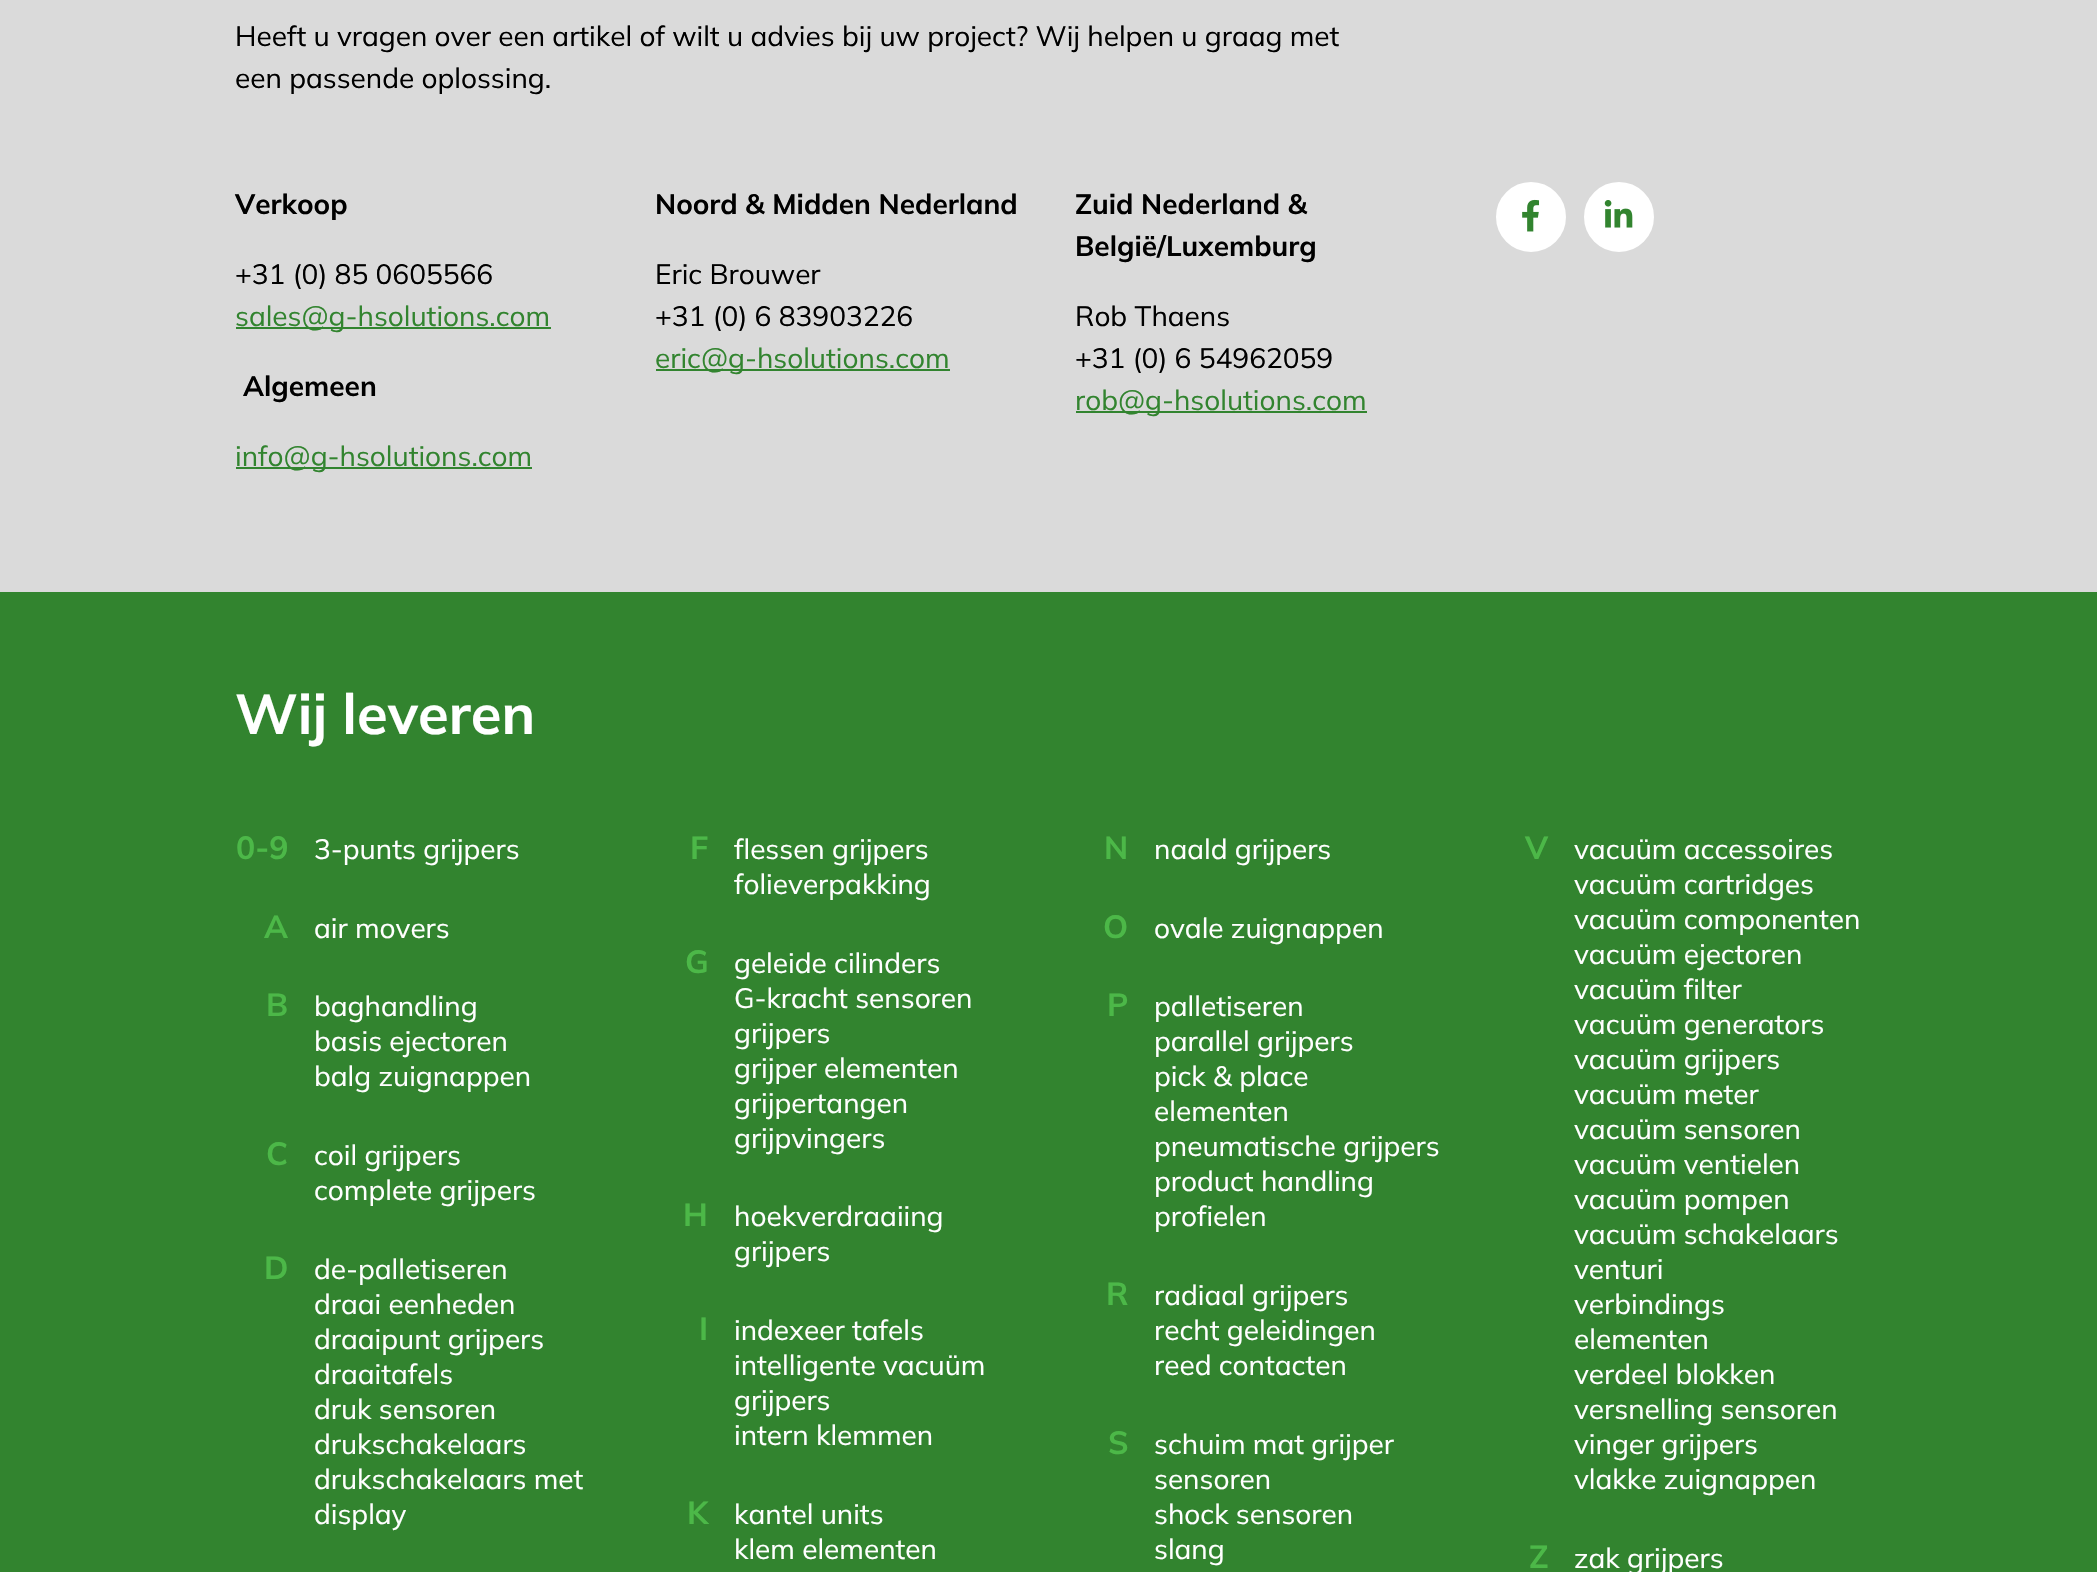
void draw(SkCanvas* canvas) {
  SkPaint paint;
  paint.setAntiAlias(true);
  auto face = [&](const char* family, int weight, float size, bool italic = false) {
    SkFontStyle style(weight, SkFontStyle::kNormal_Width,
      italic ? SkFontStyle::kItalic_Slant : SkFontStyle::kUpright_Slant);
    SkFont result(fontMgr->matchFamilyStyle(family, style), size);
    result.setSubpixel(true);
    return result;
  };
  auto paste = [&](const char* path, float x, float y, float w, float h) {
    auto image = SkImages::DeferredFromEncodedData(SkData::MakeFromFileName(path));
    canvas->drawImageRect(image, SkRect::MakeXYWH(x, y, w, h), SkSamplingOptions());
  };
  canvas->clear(0xffdadada);
  {
    const struct { float x, y, w, h; SkColor color; } items[] = {
      {236, 327, 315, 2, 0xff32842f},
      {236, 467, 296, 2, 0xff32842f},
      {656, 369, 294, 2, 0xff32842f},
      {1076, 411, 291, 2, 0xff32842f},
    };
    for (auto [x, y, w, h, color] : items) {
      paint.setColor(color);
      canvas->drawRect(SkRect::MakeXYWH(x, y, w, h), paint);
    }
  }
  paint.setColor(0xffffffff);
  canvas->drawCircle(1531, 217, 33, paint);
  paint.setStroke(true);
  paint.setStrokeWidth(4);
  canvas->drawCircle(1531, 217, 33, paint);
  paste("img/1.png", 1522, 199, 18, 33);
  paint.setStroke(false);
  canvas->drawCircle(1619, 217, 33, paint);
  paint.setStroke(true);
  canvas->drawCircle(1619, 217, 33, paint);
  paste("img/2.png", 1604, 200, 29, 28);
  paint.setStroke(false);
  paint.setColor(0xff32842f);
  canvas->drawRect(SkRect::MakeXYWH(0, 592, 2097, 980), paint);
  auto f0 = face("Mulish", 400, 28);
  paint.setColor(0xff000000);
  canvas->drawString("Heeft u vragen over een artikel of wilt u advies bij uw project? Wij helpen u graag met", 235, 46, f0, paint);
  canvas->drawString("een passende oplossing.", 235, 88, f0, paint);
  auto f1 = face("Mulish", 700, 28);
  canvas->drawString("Verkoop", 235, 214, f1, paint);
  canvas->drawString("+31 (0) 85 0605566", 235, 284, f0, paint);
  paint.setColor(0xff32842f);
  canvas->drawString("sales@g-hsolutions.com", 235, 326, f0, paint);
  paint.setColor(0xff000000);
  canvas->drawString("Algemeen", 243, 396, f1, paint);
  paint.setColor(0xff32842f);
  canvas->drawString("info@g-hsolutions.com", 235, 466, f0, paint);
  paint.setColor(0xff000000);
  canvas->drawString("Noord & Midden Nederland", 655, 214, f1, paint);
  canvas->drawString("Eric Brouwer", 655, 284, f0, paint);
  canvas->drawString("+31 (0) 6 83903226", 655, 326, f0, paint);
  paint.setColor(0xff32842f);
  canvas->drawString("eric@g-hsolutions.com", 655, 368, f0, paint);
  paint.setColor(0xff000000);
  canvas->drawString("Zuid Nederland &", 1075, 214, f1, paint);
  canvas->drawString("België/Luxemburg", 1075, 256, f1, paint);
  canvas->drawString("Rob Thaens", 1075, 326, f0, paint);
  canvas->drawString("+31 (0) 6 54962059", 1075, 368, f0, paint);
  paint.setColor(0xff32842f);
  canvas->drawString("rob@g-hsolutions.com", 1075, 410, f0, paint);
  auto f2 = face("Mulish", 700, 56);
  paint.setColor(0xffffffff);
  canvas->drawString("Wij leveren", 235, 734, f2, paint);
  auto f3 = face("Mulish", 700, 32);
  paint.setColor(0xff4cb848);
  canvas->drawString("0-9", 236, 859, f3, paint);
  paint.setColor(0xffffffff);
  canvas->drawString("3-punts grijpers", 314, 859, f0, paint);
  paint.setColor(0xff4cb848);
  canvas->drawString("A", 264, 938, f3, paint);
  paint.setColor(0xffffffff);
  canvas->drawString("air movers", 314, 938, f0, paint);
  paint.setColor(0xff4cb848);
  canvas->drawString("B", 266, 1016, f3, paint);
  paint.setColor(0xffffffff);
  {
    const struct { const char* s; float x, y; } items[] = {
      {"baghandling", 314, 1016},
      {"basis ejectoren", 314, 1051},
      {"balg zuignappen", 314, 1086},
    };
    for (auto [s, x, y] : items) {
      canvas->drawString(s, x, y, f0, paint);
    }
  }
  paint.setColor(0xff4cb848);
  canvas->drawString("C", 266, 1165, f3, paint);
  paint.setColor(0xffffffff);
  canvas->drawString("coil grijpers", 314, 1165, f0, paint);
  canvas->drawString("complete grijpers", 314, 1200, f0, paint);
  paint.setColor(0xff4cb848);
  canvas->drawString("D", 264, 1279, f3, paint);
  paint.setColor(0xffffffff);
  {
    const struct { const char* s; float x, y; } items[] = {
      {"de-palletiseren", 314, 1279},
      {"draai eenheden", 314, 1314},
      {"draaipunt grijpers", 314, 1349},
      {"draaitafels", 314, 1384},
      {"druk sensoren", 314, 1419},
      {"drukschakelaars", 314, 1454},
      {"drukschakelaars met", 314, 1489},
      {"display", 314, 1524},
    };
    for (auto [s, x, y] : items) {
      canvas->drawString(s, x, y, f0, paint);
    }
  }
  paint.setColor(0xff4cb848);
  canvas->drawString("F", 690, 859, f3, paint);
  paint.setColor(0xffffffff);
  canvas->drawString("flessen grijpers", 734, 859, f0, paint);
  canvas->drawString("folieverpakking", 734, 894, f0, paint);
  paint.setColor(0xff4cb848);
  canvas->drawString("G", 685, 973, f3, paint);
  paint.setColor(0xffffffff);
  {
    const struct { const char* s; float x, y; } items[] = {
      {"geleide cilinders", 734, 973},
      {"G-kracht sensoren", 734, 1008},
      {"grijpers", 734, 1043},
      {"grijper elementen", 734, 1078},
      {"grijpertangen", 734, 1113},
      {"grijpvingers", 734, 1148},
    };
    for (auto [s, x, y] : items) {
      canvas->drawString(s, x, y, f0, paint);
    }
  }
  paint.setColor(0xff4cb848);
  canvas->drawString("H", 683, 1226, f3, paint);
  paint.setColor(0xffffffff);
  canvas->drawString("hoekverdraaiing", 734, 1226, f0, paint);
  canvas->drawString("grijpers", 734, 1261, f0, paint);
  paint.setColor(0xff4cb848);
  canvas->drawString("I", 699, 1340, f3, paint);
  paint.setColor(0xffffffff);
  {
    const struct { const char* s; float x, y; } items[] = {
      {"indexeer tafels", 734, 1340},
      {"intelligente vacuüm", 734, 1375},
      {"grijpers", 734, 1410},
      {"intern klemmen", 734, 1445},
    };
    for (auto [s, x, y] : items) {
      canvas->drawString(s, x, y, f0, paint);
    }
  }
  paint.setColor(0xff4cb848);
  canvas->drawString("K", 687, 1524, f3, paint);
  paint.setColor(0xffffffff);
  canvas->drawString("kantel units", 734, 1524, f0, paint);
  canvas->drawString("klem elementen", 734, 1559, f0, paint);
  paint.setColor(0xff4cb848);
  canvas->drawString("N", 1104, 859, f3, paint);
  paint.setColor(0xffffffff);
  canvas->drawString("naald grijpers", 1154, 859, f0, paint);
  paint.setColor(0xff4cb848);
  canvas->drawString("O", 1103, 938, f3, paint);
  paint.setColor(0xffffffff);
  canvas->drawString("ovale zuignappen", 1154, 938, f0, paint);
  paint.setColor(0xff4cb848);
  canvas->drawString("P", 1107, 1016, f3, paint);
  paint.setColor(0xffffffff);
  {
    const struct { const char* s; float x, y; } items[] = {
      {"palletiseren", 1154, 1016},
      {"parallel grijpers", 1154, 1051},
      {"pick & place", 1154, 1086},
      {"elementen", 1154, 1121},
      {"pneumatische grijpers", 1154, 1156},
      {"product handling", 1154, 1191},
      {"profielen", 1154, 1226},
    };
    for (auto [s, x, y] : items) {
      canvas->drawString(s, x, y, f0, paint);
    }
  }
  paint.setColor(0xff4cb848);
  canvas->drawString("R", 1106, 1305, f3, paint);
  paint.setColor(0xffffffff);
  {
    const struct { const char* s; float x, y; } items[] = {
      {"radiaal grijpers", 1154, 1305},
      {"recht geleidingen", 1154, 1340},
      {"reed contacten", 1154, 1375},
    };
    for (auto [s, x, y] : items) {
      canvas->drawString(s, x, y, f0, paint);
    }
  }
  paint.setColor(0xff4cb848);
  canvas->drawString("S", 1108, 1454, f3, paint);
  paint.setColor(0xffffffff);
  {
    const struct { const char* s; float x, y; } items[] = {
      {"schuim mat grijper", 1154, 1454},
      {"sensoren", 1154, 1489},
      {"shock sensoren", 1154, 1524},
      {"slang", 1154, 1559},
    };
    for (auto [s, x, y] : items) {
      canvas->drawString(s, x, y, f0, paint);
    }
  }
  paint.setColor(0xff4cb848);
  canvas->drawString("V", 1525, 859, f3, paint);
  paint.setColor(0xffffffff);
  {
    const struct { const char* s; float x, y; } items[] = {
      {"vacuüm accessoires", 1574, 859},
      {"vacuüm cartridges", 1574, 894},
      {"vacuüm componenten", 1574, 929},
      {"vacuüm ejectoren", 1574, 964},
      {"vacuüm filter", 1574, 999},
      {"vacuüm generators", 1574, 1034},
      {"vacuüm grijpers", 1574, 1069},
      {"vacuüm meter", 1574, 1104},
      {"vacuüm sensoren", 1574, 1139},
      {"vacuüm ventielen", 1574, 1174},
      {"vacuüm pompen", 1574, 1209},
      {"vacuüm schakelaars", 1574, 1244},
      {"venturi", 1574, 1279},
      {"verbindings", 1574, 1314},
      {"elementen", 1574, 1349},
      {"verdeel blokken", 1574, 1384},
      {"versnelling sensoren", 1574, 1419},
      {"vinger grijpers", 1574, 1454},
      {"vlakke zuignappen", 1574, 1489},
    };
    for (auto [s, x, y] : items) {
      canvas->drawString(s, x, y, f0, paint);
    }
  }
  paint.setColor(0xff4cb848);
  canvas->drawString("Z", 1529, 1568, f3, paint);
  paint.setColor(0xffffffff);
  canvas->drawString("zak grijpers", 1574, 1568, f0, paint);
}
